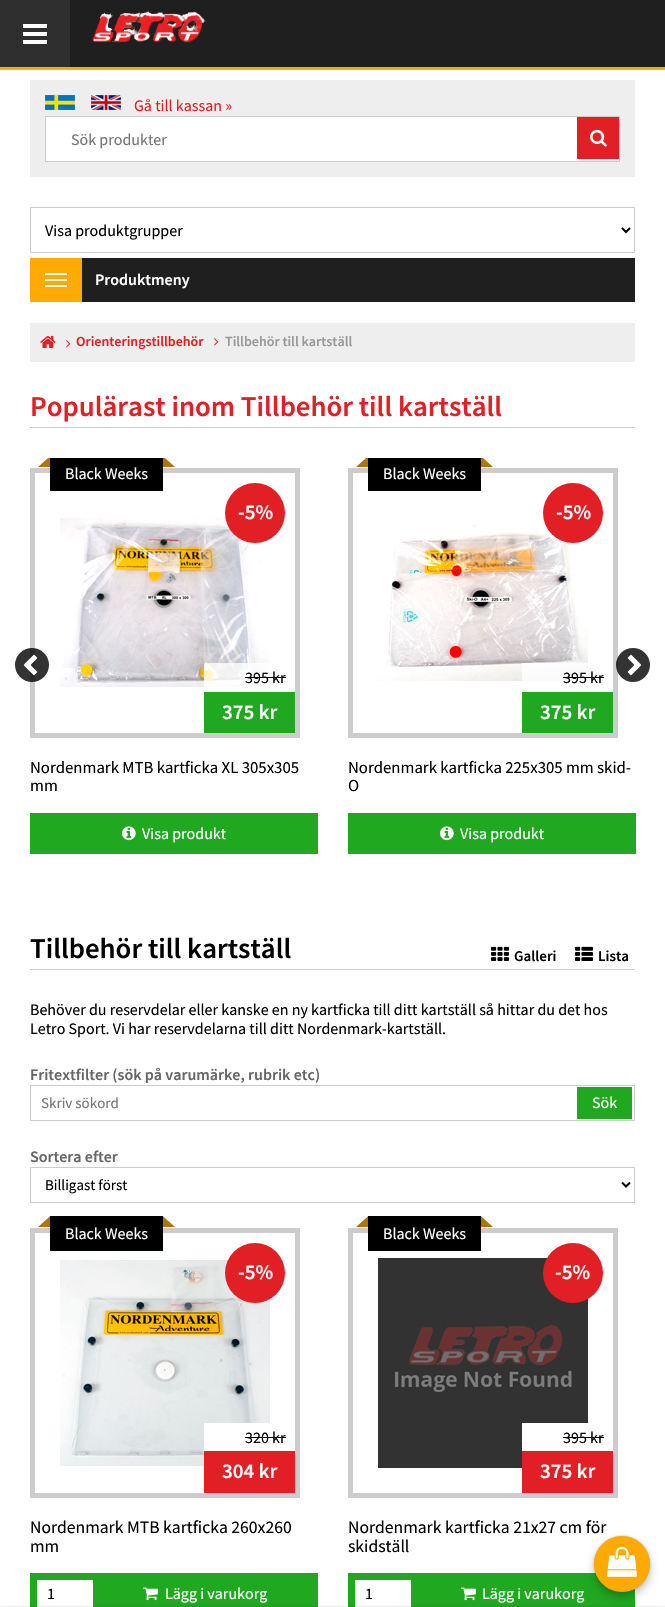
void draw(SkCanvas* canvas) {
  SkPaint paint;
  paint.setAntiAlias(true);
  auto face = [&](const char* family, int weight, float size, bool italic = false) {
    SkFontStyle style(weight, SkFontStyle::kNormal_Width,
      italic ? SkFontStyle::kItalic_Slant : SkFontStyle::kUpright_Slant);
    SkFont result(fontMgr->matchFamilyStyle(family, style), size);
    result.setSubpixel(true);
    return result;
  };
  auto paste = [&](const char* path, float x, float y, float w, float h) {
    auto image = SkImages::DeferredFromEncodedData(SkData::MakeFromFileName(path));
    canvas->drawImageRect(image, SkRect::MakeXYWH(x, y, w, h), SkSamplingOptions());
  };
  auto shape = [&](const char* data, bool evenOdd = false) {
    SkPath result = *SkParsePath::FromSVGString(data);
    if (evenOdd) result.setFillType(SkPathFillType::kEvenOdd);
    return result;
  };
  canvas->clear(0xffffffff);
  {
    const struct { float x, y, w, h; SkColor color; } items[] = {
      {70, 0, 595, 67, 0xff1f1f1f},
      {0, 67, 665, 3, 0xffffaa00},
      {0, 0, 70, 67, 0xff2f2f2f},
      {23, 32, 24, 4, 0xffffffff},
      {23, 24, 24, 4, 0xffffffff},
      {23, 40, 24, 4, 0xffffffff},
    };
    for (auto [x, y, w, h, color] : items) {
      paint.setColor(color);
      canvas->drawRect(SkRect::MakeXYWH(x, y, w, h), paint);
    }
  }
  paste("img/1.png", 92, 10, 114, 33);
  paint.setColor(0xff20a820);
  canvas->drawRect(SkRect::MakeXYWH(411, 1573, 224, 34), paint);
  paint.setColor(0x40000000);
  paint.setMaskFilter(SkMaskFilter::MakeBlur(kNormal_SkBlurStyle, 1));
  canvas->drawRoundRect(SkRect::MakeXYWH(594, 1536, 56, 56), 28, 28, paint);
  paint.setMaskFilter(nullptr);
  paint.setMaskFilter(SkMaskFilter::MakeBlur(kNormal_SkBlurStyle, 4));
  canvas->drawRoundRect(SkRect::MakeXYWH(594, 1541, 56, 56), 28, 28, paint);
  paint.setMaskFilter(nullptr);
  canvas->save();
  canvas->clipPath(shape("M622 1536C637.5 1536 650 1548.5 650 1564C650 1579.5 637.5 1592 622 1592C606.5 1592 594 1579.5 594 1564C594 1548.5 606.5 1536 622 1536Z"), true);
  paint.setColor(0xffffaa00);
  canvas->drawCircle(622, 1564, 30, paint);
  canvas->restore();
  paste("img/2.png", 607, 1546, 30, 31);
  {
    const struct { float x, y, w, h; SkColor color; } items[] = {
      {30, 1573, 63, 7, 0xff20a820},
      {30, 1573, 7, 34, 0xff20a820},
      {93, 1573, 225, 34, 0xff20a820},
      {348, 1573, 63, 7, 0xff20a820},
      {348, 1573, 7, 34, 0xff20a820},
    };
    for (auto [x, y, w, h, color] : items) {
      paint.setColor(color);
      canvas->drawRect(SkRect::MakeXYWH(x, y, w, h), paint);
    }
  }
  paint.setColor(0x40000000);
  paint.setMaskFilter(SkMaskFilter::MakeBlur(kNormal_SkBlurStyle, 1));
  canvas->drawRect(SkRect::MakeXYWH(0, 1607, 665, 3), paint);
  paint.setMaskFilter(nullptr);
  paint.setColor(0xffeeeeee);
  canvas->drawRect(SkRect::MakeXYWH(30, 80, 605, 97), paint);
  paste("img/3.png", 45, 95, 30, 15);
  paste("img/4.png", 91, 95, 30, 15);
  paint.setColor(0xffffffff);
  canvas->drawRect(SkRect::MakeXYWH(45.5f, 116.5f, 574, 45), paint);
  paint.setStroke(true);
  paint.setStrokeWidth(1);
  paint.setColor(0xffcccccc);
  canvas->drawRect(SkRect::MakeXYWH(45.5f, 116.5f, 574, 45), paint);
  paint.setStroke(false);
  paint.setColor(0xffe21f24);
  canvas->drawRect(SkRect::MakeXYWH(577, 117, 42, 42), paint);
  paste("img/5.png", 590, 129, 17, 18);
  paint.setStroke(true);
  paint.setColor(0xffcccccc);
  canvas->drawRect(SkRect::MakeXYWH(30.5f, 207.5f, 604, 45), paint);
  paint.setStrokeWidth(2);
  paint.setColor(0xff000000);
  canvas->drawPath(shape("M622 228L626 232L630 228"), paint);
  paint.setStroke(false);
  {
    const struct { float x, y, w, h; SkColor color; } items[] = {
      {82, 258, 553, 44, 0xff1f1f1f},
      {30, 258, 52, 44, 0xffffaa00},
      {45, 273, 22, 2, 0xffffffff},
      {45, 279, 22, 2, 0xffffffff},
      {45, 285, 22, 2, 0xffffffff},
      {30, 323, 605, 39, 0xffeeeeee},
    };
    for (auto [x, y, w, h, color] : items) {
      paint.setColor(color);
      canvas->drawRect(SkRect::MakeXYWH(x, y, w, h), paint);
    }
  }
  paste("img/6.png", 40, 335, 16, 13);
  paste("img/7.png", 66, 340, 5, 8);
  paste("img/7.png", 214, 338, 5, 8);
  paint.setColor(0xffcccccc);
  canvas->drawRect(SkRect::MakeXYWH(30, 427, 605, 1), paint);
  paint.setStroke(true);
  paint.setStrokeWidth(5);
  canvas->drawRect(SkRect::MakeXYWH(32.5f, 470.5f, 265, 265), paint);
  paint.setStroke(false);
  paint.setColor(0xff000000);
  canvas->drawRect(SkRect::MakeXYWH(50, 458, 113, 33), paint);
  paste("img/8.png", 38, 458, 12, 9);
  paste("img/9.png", 163, 458, 12, 9);
  paste("img/10.png", 60, 518, 210, 169);
  paint.setColor(0xffe21f24);
  canvas->drawCircle(255, 513, 30, paint);
  {
    const struct { float x, y, w, h; SkColor color; } items[] = {
      {204, 663, 66, 24, 0xccffffff},
      {245, 677, 41, 1, 0xff000000},
      {204, 692, 91, 41, 0xff20a820},
      {30, 813, 288, 41, 0xff20a820},
    };
    for (auto [x, y, w, h, color] : items) {
      paint.setColor(color);
      canvas->drawRect(SkRect::MakeXYWH(x, y, w, h), paint);
    }
  }
  paste("img/11.png", 122, 826, 14, 15);
  paint.setStroke(true);
  paint.setColor(0xffcccccc);
  canvas->drawRect(SkRect::MakeXYWH(350.5f, 470.5f, 265, 265), paint);
  paint.setStroke(false);
  paint.setColor(0xff000000);
  canvas->drawRect(SkRect::MakeXYWH(368, 458, 113, 33), paint);
  paste("img/8.png", 356, 458, 12, 9);
  paste("img/9.png", 481, 458, 12, 9);
  paste("img/12.png", 378, 525, 210, 156);
  paint.setColor(0xffe21f24);
  canvas->drawCircle(573, 513, 30, paint);
  {
    const struct { float x, y, w, h; SkColor color; } items[] = {
      {522, 663, 66, 18, 0xccffffff},
      {563, 677, 41, 1, 0xff000000},
      {522, 692, 91, 41, 0xff20a820},
      {348, 813, 288, 41, 0xff20a820},
    };
    for (auto [x, y, w, h, color] : items) {
      paint.setColor(color);
      canvas->drawRect(SkRect::MakeXYWH(x, y, w, h), paint);
    }
  }
  paste("img/11.png", 440, 826, 14, 15);
  paint.setColor(0xcc000000);
  canvas->drawCircle(32, 665, 17, paint);
  paste("img/13.png", 23, 654, 15, 22);
  canvas->drawCircle(633, 665, 17, paint);
  paste("img/14.png", 627, 654, 15, 22);
  paint.setColor(0xffcccccc);
  canvas->drawRect(SkRect::MakeXYWH(30, 969, 605, 1), paint);
  paste("img/15.png", 491, 946, 18, 15);
  paste("img/16.png", 575, 946, 18, 15);
  paint.setStroke(true);
  paint.setStrokeWidth(1);
  canvas->drawRect(SkRect::MakeXYWH(30.5f, 1085.5f, 604, 35), paint);
  paint.setStroke(false);
  paint.setColor(0xff20a820);
  canvas->drawRect(SkRect::MakeXYWH(577, 1087, 55, 32), paint);
  paint.setStroke(true);
  paint.setColor(0xffcccccc);
  canvas->drawRect(SkRect::MakeXYWH(30.5f, 1167.5f, 604, 35), paint);
  paint.setStrokeWidth(2);
  paint.setColor(0xff000000);
  canvas->drawPath(shape("M622 1182.5L626 1186.5L630 1182.5"), paint);
  paint.setStrokeWidth(5);
  paint.setColor(0xffcccccc);
  canvas->drawRect(SkRect::MakeXYWH(32.5f, 1230.5f, 265, 265), paint);
  paint.setStroke(false);
  paint.setColor(0xff000000);
  canvas->drawRect(SkRect::MakeXYWH(50, 1216, 113, 35), paint);
  paste("img/17.png", 38, 1216, 12, 11);
  paste("img/18.png", 163, 1216, 12, 11);
  paste("img/19.png", 60, 1260, 210, 206);
  paint.setColor(0xffe21f24);
  canvas->drawCircle(255, 1273, 30, paint);
  {
    const struct { float x, y, w, h; SkColor color; } items[] = {
      {204, 1423, 66, 28, 0xffffffff},
      {245, 1437, 41, 1, 0xff000000},
      {204, 1451, 91, 42, 0xffe21f24},
    };
    for (auto [x, y, w, h, color] : items) {
      paint.setColor(color);
      canvas->drawRect(SkRect::MakeXYWH(x, y, w, h), paint);
    }
  }
  paste("img/20.png", 143, 1587, 15, 14);
  paint.setStroke(true);
  paint.setColor(0xffcccccc);
  canvas->drawRect(SkRect::MakeXYWH(350.5f, 1230.5f, 265, 265), paint);
  paint.setStroke(false);
  paint.setColor(0xff000000);
  canvas->drawRect(SkRect::MakeXYWH(368, 1216, 113, 35), paint);
  paste("img/17.png", 356, 1216, 12, 11);
  paste("img/18.png", 481, 1216, 12, 11);
  paste("img/21.png", 378, 1258, 210, 210);
  paint.setColor(0xffe21f24);
  canvas->drawCircle(573, 1273, 30, paint);
  {
    const struct { float x, y, w, h; SkColor color; } items[] = {
      {522, 1423, 66, 28, 0xffffffff},
      {563, 1437, 41, 1, 0xff000000},
      {522, 1451, 91, 42, 0xffe21f24},
    };
    for (auto [x, y, w, h, color] : items) {
      paint.setColor(color);
      canvas->drawRect(SkRect::MakeXYWH(x, y, w, h), paint);
    }
  }
  paste("img/20.png", 461, 1587, 15, 14);
  auto f0 = face("Source Sans Pro", 400, 16);
  canvas->drawString("Gå till kassan »", 134, 111, f0, paint);
  paint.setColor(0xff757575);
  canvas->drawString("Sök produkter", 71, 145, f0, paint);
  paint.setColor(0xff000000);
  canvas->drawString("Visa produktgrupper", 45, 236, f0, paint);
  auto f1 = face("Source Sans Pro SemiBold", 600, 16);
  paint.setColor(0xffffffff);
  canvas->drawString("Produktmeny", 95, 285, f1, paint);
  auto f2 = face("Source Sans Pro SemiBold", 600, 14);
  paint.setColor(0xffe21f24);
  canvas->drawString("Orienteringstillbehör", 76, 346, f2, paint);
  paint.setColor(0xff999999);
  canvas->drawString("Tillbehör till kartställ", 225, 346, f2, paint);
  auto f3 = face("Source Sans Pro SemiBold", 600, 28.75f);
  paint.setColor(0xffe21f24);
  canvas->drawString("Populärast inom Tillbehör till kartställ", 30, 416, f3, paint);
  paint.setColor(0xffffffff);
  canvas->drawString("Black Weeks", 65, 479, f0, paint);
  auto f4 = face("Source Sans Pro SemiBold", 600, 21);
  canvas->drawString("-5%", 238, 519, f4, paint);
  paint.setColor(0xff000000);
  canvas->drawString("395 kr", 245, 683, f0, paint);
  paint.setColor(0xffffffff);
  canvas->drawString("375 kr", 222, 719, f4, paint);
  auto f5 = face("Source Sans Pro", 400, 16.75f);
  paint.setColor(0xff000000);
  canvas->drawString("Nordenmark MTB kartficka XL 305x305", 30, 773, f5, paint);
  canvas->drawString("mm", 30, 791, f5, paint);
  paint.setColor(0xffffffff);
  canvas->drawString("Visa produkt", 142, 839, f0, paint);
  canvas->drawString("Black Weeks", 383, 479, f0, paint);
  canvas->drawString("-5%", 556, 519, f4, paint);
  paint.setColor(0xff000000);
  canvas->drawString("395 kr", 563, 683, f0, paint);
  paint.setColor(0xffffffff);
  canvas->drawString("375 kr", 540, 719, f4, paint);
  paint.setColor(0xff000000);
  canvas->drawString("Nordenmark kartficka 225x305 mm skid-", 348, 773, f5, paint);
  canvas->drawString("O", 348, 791, f5, paint);
  paint.setColor(0xffffffff);
  canvas->drawString("Visa produkt", 460, 839, f0, paint);
  paint.setColor(0xff000000);
  canvas->drawString("Tillbehör till kartställ", 30, 958, f3, paint);
  auto f6 = face("Source Sans Pro SemiBold", 600, 15);
  canvas->drawString("Galleri", 514, 961, f6, paint);
  canvas->drawString("Lista", 598, 961, f6, paint);
  canvas->drawString("Behöver du reservdelar eller kanske en ny kartficka till ditt kartställ så hittar du det hos", 30, 1015, f0, paint);
  canvas->drawString("Letro Sport. Vi har reservdelarna till ditt Nordenmark-kartställ.", 30, 1034, f0, paint);
  paint.setColor(0xff666666);
  canvas->drawString("Fritextfilter (sök på varumärke, rubrik etc)", 30, 1080, f1, paint);
  auto f7 = face("Source Sans Pro", 400, 15);
  paint.setColor(0xff757575);
  canvas->drawString("Skriv sökord", 41, 1108, f7, paint);
  paint.setColor(0xffffffff);
  canvas->drawString("Sök", 592, 1108, f0, paint);
  paint.setColor(0xff666666);
  canvas->drawString("Sortera efter", 30, 1162, f1, paint);
  paint.setColor(0xff000000);
  canvas->drawString("Billigast först", 45, 1190, f7, paint);
  paint.setColor(0xffffffff);
  canvas->drawString("Black Weeks", 65, 1239, f0, paint);
  canvas->drawString("-5%", 238, 1279, f4, paint);
  paint.setColor(0xff000000);
  canvas->drawString("320 kr", 245, 1443, f0, paint);
  paint.setColor(0xffffffff);
  canvas->drawString("304 kr", 222, 1478, f4, paint);
  auto f8 = face("Source Sans Pro", 400, 17.6f);
  paint.setColor(0xff000000);
  canvas->drawString("Nordenmark MTB kartficka 260x260", 30, 1533, f8, paint);
  canvas->drawString("mm", 30, 1552, f8, paint);
  canvas->drawString("1", 47, 1599, f0, paint);
  paint.setColor(0xffffffff);
  canvas->drawString("Lägg i varukorg", 165, 1599, f0, paint);
  canvas->drawString("Black Weeks", 383, 1239, f0, paint);
  canvas->drawString("-5%", 555, 1279, f4, paint);
  paint.setColor(0xff000000);
  canvas->drawString("395 kr", 563, 1443, f0, paint);
  paint.setColor(0xffffffff);
  canvas->drawString("375 kr", 540, 1478, f4, paint);
  paint.setColor(0xff000000);
  canvas->drawString("Nordenmark kartficka 21x27 cm för", 348, 1533, f8, paint);
  canvas->drawString("skidställ", 348, 1552, f8, paint);
  canvas->drawString("1", 365, 1599, f0, paint);
  paint.setColor(0xffffffff);
  canvas->drawString("Lägg i varukorg", 482, 1599, f0, paint);
}
